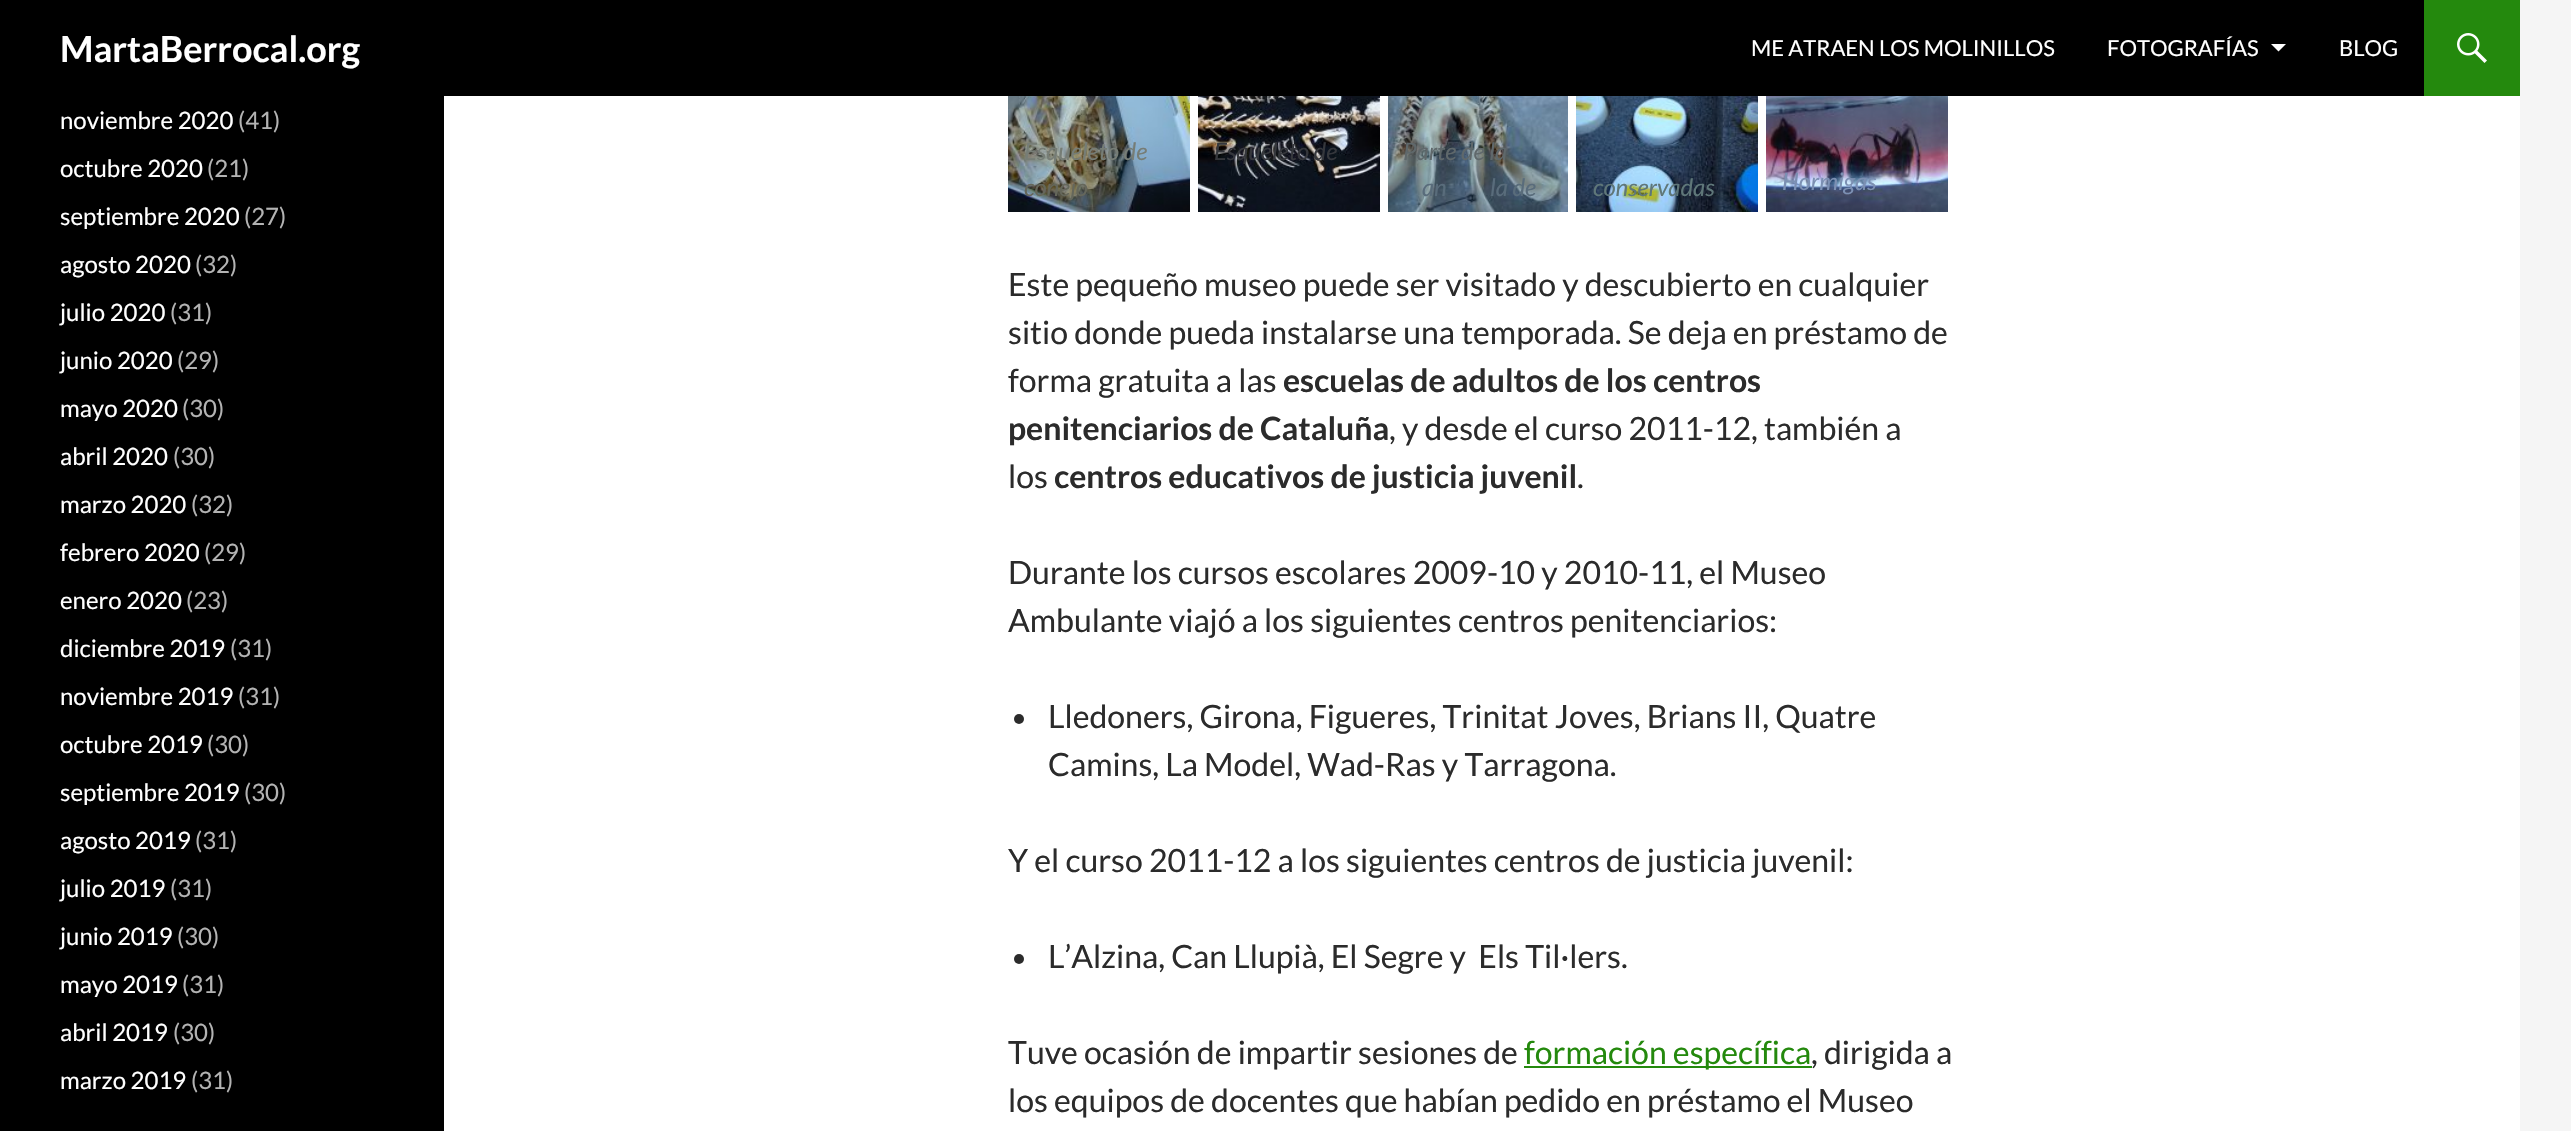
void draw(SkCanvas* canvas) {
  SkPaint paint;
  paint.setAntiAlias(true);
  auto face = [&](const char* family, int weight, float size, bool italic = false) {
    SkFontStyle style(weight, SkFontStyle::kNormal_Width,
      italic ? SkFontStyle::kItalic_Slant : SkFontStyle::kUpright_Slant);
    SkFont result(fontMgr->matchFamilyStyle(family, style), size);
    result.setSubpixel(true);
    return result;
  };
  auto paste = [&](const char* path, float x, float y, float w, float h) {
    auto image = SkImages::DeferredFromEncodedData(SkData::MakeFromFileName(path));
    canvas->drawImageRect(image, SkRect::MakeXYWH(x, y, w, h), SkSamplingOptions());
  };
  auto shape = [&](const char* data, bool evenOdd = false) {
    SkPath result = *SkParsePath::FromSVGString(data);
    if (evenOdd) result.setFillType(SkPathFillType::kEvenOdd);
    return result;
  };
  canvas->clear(0xfff5f5f5);
  paint.setColor(0xffffffff);
  canvas->drawRect(SkRect::MakeXYWH(444, 96, 2076, 1035), paint);
  paint.setColor(0xff000000);
  canvas->drawRect(SkRect::MakeXYWH(0, 0, 2424, 96), paint);
  paint.setColor(0xffffffff);
  canvas->drawPath(shape("M2271 44L2278.5 51.5L2286 44Z"), paint);
  paint.setColor(0xff24890d);
  canvas->drawRect(SkRect::MakeXYWH(2424, 0, 96, 96), paint);
  paste("img/1.png", 2457, 33, 30, 30);
  paint.setColor(0xff000000);
  canvas->drawRect(SkRect::MakeXYWH(0, 96, 444, 1035), paint);
  paste("img/2.png", 1008, 96, 182, 116);
  paste("img/3.png", 1198, 96, 182, 116);
  paste("img/4.png", 1388, 96, 180, 116);
  paste("img/5.png", 1576, 96, 182, 116);
  paste("img/6.png", 1766, 96, 182, 116);
  paint.setColor(0xff2b2b2b);
  canvas->drawCircle(1019, 719, 5, paint);
  canvas->drawCircle(1019, 959, 5, paint);
  paint.setColor(0xff24890d);
  canvas->drawRect(SkRect::MakeXYWH(1524, 1066, 288, 2), paint);
  auto f0 = face("Lato", 700, 36);
  paint.setColor(0xffffffff);
  canvas->drawString("MartaBerrocal.org", 60, 62, f0, paint);
  auto f1 = face("Lato", 400, 22);
  {
    const struct { const char* s; float x, y; } items[] = {
      {"ME ATRAEN LOS MOLINILLOS", 1751, 56},
      {"FOTOGRAFÍAS", 2107, 56},
      {"BLOG", 2339, 56},
    };
    for (auto [s, x, y] : items) {
      canvas->drawString(s, x, y, f1, paint);
    }
  }
  auto f2 = face("Lato", 400, 24);
  canvas->drawString("noviembre 2020", 60, 129, f2, paint);
  paint.setColor(0xffb3b3b3);
  canvas->drawString("(41)", 238, 129, f2, paint);
  paint.setColor(0xffffffff);
  canvas->drawString("octubre 2020", 60, 177, f2, paint);
  paint.setColor(0xffb3b3b3);
  canvas->drawString("(21)", 207, 177, f2, paint);
  paint.setColor(0xffffffff);
  canvas->drawString("septiembre 2020", 60, 225, f2, paint);
  paint.setColor(0xffb3b3b3);
  canvas->drawString("(27)", 244, 225, f2, paint);
  paint.setColor(0xffffffff);
  canvas->drawString("agosto 2020", 60, 273, f2, paint);
  paint.setColor(0xffb3b3b3);
  canvas->drawString("(32)", 195, 273, f2, paint);
  paint.setColor(0xffffffff);
  canvas->drawString("julio 2020", 60, 321, f2, paint);
  paint.setColor(0xffb3b3b3);
  canvas->drawString("(31)", 170, 321, f2, paint);
  paint.setColor(0xffffffff);
  canvas->drawString("junio 2020", 60, 369, f2, paint);
  paint.setColor(0xffb3b3b3);
  canvas->drawString("(29)", 177, 369, f2, paint);
  paint.setColor(0xffffffff);
  canvas->drawString("mayo 2020", 60, 417, f2, paint);
  paint.setColor(0xffb3b3b3);
  canvas->drawString("(30)", 182, 417, f2, paint);
  paint.setColor(0xffffffff);
  canvas->drawString("abril 2020", 60, 465, f2, paint);
  paint.setColor(0xffb3b3b3);
  canvas->drawString("(30)", 173, 465, f2, paint);
  paint.setColor(0xffffffff);
  canvas->drawString("marzo 2020", 60, 513, f2, paint);
  paint.setColor(0xffb3b3b3);
  canvas->drawString("(32)", 191, 513, f2, paint);
  paint.setColor(0xffffffff);
  canvas->drawString("febrero 2020", 60, 561, f2, paint);
  paint.setColor(0xffb3b3b3);
  canvas->drawString("(29)", 204, 561, f2, paint);
  paint.setColor(0xffffffff);
  canvas->drawString("enero 2020", 60, 609, f2, paint);
  paint.setColor(0xffb3b3b3);
  canvas->drawString("(23)", 186, 609, f2, paint);
  paint.setColor(0xffffffff);
  canvas->drawString("diciembre 2019", 60, 657, f2, paint);
  paint.setColor(0xffb3b3b3);
  canvas->drawString("(31)", 230, 657, f2, paint);
  paint.setColor(0xffffffff);
  canvas->drawString("noviembre 2019", 60, 705, f2, paint);
  paint.setColor(0xffb3b3b3);
  canvas->drawString("(31)", 238, 705, f2, paint);
  paint.setColor(0xffffffff);
  canvas->drawString("octubre 2019", 60, 753, f2, paint);
  paint.setColor(0xffb3b3b3);
  canvas->drawString("(30)", 207, 753, f2, paint);
  paint.setColor(0xffffffff);
  canvas->drawString("septiembre 2019", 60, 801, f2, paint);
  paint.setColor(0xffb3b3b3);
  canvas->drawString("(30)", 244, 801, f2, paint);
  paint.setColor(0xffffffff);
  canvas->drawString("agosto 2019", 60, 849, f2, paint);
  paint.setColor(0xffb3b3b3);
  canvas->drawString("(31)", 195, 849, f2, paint);
  paint.setColor(0xffffffff);
  canvas->drawString("julio 2019", 60, 897, f2, paint);
  paint.setColor(0xffb3b3b3);
  canvas->drawString("(31)", 170, 897, f2, paint);
  paint.setColor(0xffffffff);
  canvas->drawString("junio 2019", 60, 945, f2, paint);
  paint.setColor(0xffb3b3b3);
  canvas->drawString("(30)", 177, 945, f2, paint);
  paint.setColor(0xffffffff);
  canvas->drawString("mayo 2019", 60, 993, f2, paint);
  paint.setColor(0xffb3b3b3);
  canvas->drawString("(31)", 182, 993, f2, paint);
  paint.setColor(0xffffffff);
  canvas->drawString("abril 2019", 60, 1041, f2, paint);
  paint.setColor(0xffb3b3b3);
  canvas->drawString("(30)", 173, 1041, f2, paint);
  paint.setColor(0xffffffff);
  canvas->drawString("marzo 2019", 60, 1089, f2, paint);
  paint.setColor(0xffb3b3b3);
  canvas->drawString("(31)", 191, 1089, f2, paint);
  auto f3 = face("Lato", 400, 24, true);
  paint.setColor(0xff767d76);
  canvas->drawString("Esqueleto de", 1024, 160, f3, paint);
  paint.setColor(0xff65675b);
  canvas->drawString("conejo", 1024, 196, f3, paint);
  paint.setColor(0xff35373c);
  canvas->drawString("Esqueleto de", 1214, 160, f3, paint);
  paint.setColor(0xff5f686b);
  canvas->drawString("Parte de la", 1403, 160, f3, paint);
  paint.setColor(0xff596c7b);
  canvas->drawString("an", 1422, 196, f3, paint);
  canvas->drawString("la de", 1490, 196, f3, paint);
  paint.setColor(0xff5f7779);
  canvas->drawString("conservadas", 1593, 196, f3, paint);
  paint.setColor(0xff7c90b3);
  canvas->drawString("Hormigas", 1782, 190, f3, paint);
  auto f4 = face("Lato", 400, 32);
  paint.setColor(0xff2b2b2b);
  {
    const struct { const char* s; float x, y; } items[] = {
      {"Este pequeño museo puede ser visitado y descubierto en cualquier", 1008, 296},
      {"sitio donde pueda instalarse una temporada. Se deja en préstamo de", 1008, 344},
      {"forma gratuita a las", 1008, 392},
    };
    for (auto [s, x, y] : items) {
      canvas->drawString(s, x, y, f4, paint);
    }
  }
  auto f5 = face("Lato", 700, 32);
  canvas->drawString("escuelas de adultos de los centros", 1283, 392, f5, paint);
  canvas->drawString("penitenciarios de Cataluña", 1008, 440, f5, paint);
  canvas->drawString(", y desde el curso 2011-12, también a", 1389, 440, f4, paint);
  canvas->drawString("los", 1008, 488, f4, paint);
  canvas->drawString("centros educativos de justicia juvenil", 1054, 488, f5, paint);
  {
    const struct { const char* s; float x, y; } items[] = {
      {".", 1577, 488},
      {"Durante los cursos escolares 2009-10 y 2010-11, el Museo", 1008, 584},
      {"Ambulante viajó a los siguientes centros penitenciarios:", 1008, 632},
      {"Lledoners, Girona, Figueres, Trinitat Joves, Brians II, Quatre", 1048, 728},
      {"Camins, La Model, Wad-Ras y Tarragona.", 1048, 776},
      {"Y el curso 2011-12 a los siguientes centros de justicia juvenil:", 1008, 872},
      {"L’Alzina, Can Llupià, El Segre y  Els Til·lers.", 1048, 968},
      {"Tuve ocasión de impartir sesiones de", 1008, 1064},
    };
    for (auto [s, x, y] : items) {
      canvas->drawString(s, x, y, f4, paint);
    }
  }
  paint.setColor(0xff24890d);
  canvas->drawString("formación específica", 1524, 1064, f4, paint);
  paint.setColor(0xff2b2b2b);
  canvas->drawString(", dirigida a", 1811, 1064, f4, paint);
  canvas->drawString("los equipos de docentes que habían pedido en préstamo el Museo", 1008, 1112, f4, paint);
}
